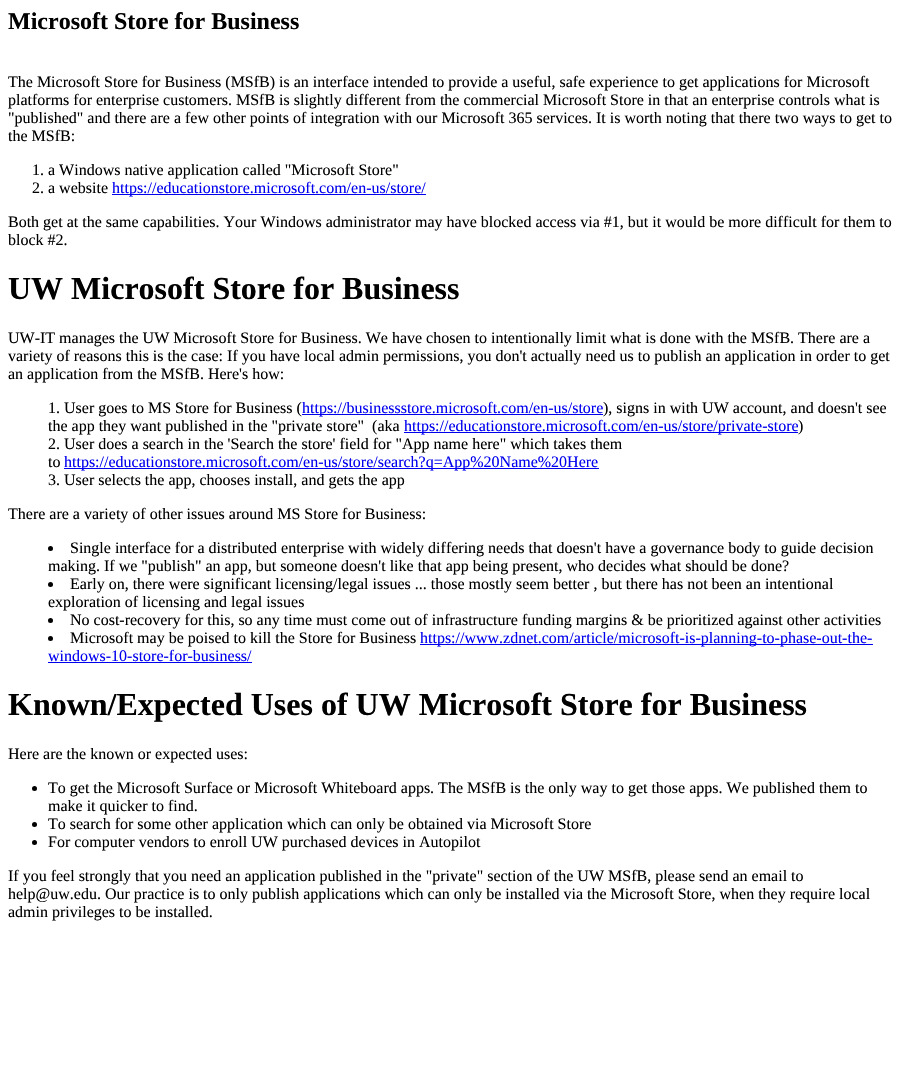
void draw(SkCanvas* canvas) {
  SkPaint paint;
  paint.setAntiAlias(true);
  auto face = [&](const char* family, int weight, float size, bool italic = false) {
    SkFontStyle style(weight, SkFontStyle::kNormal_Width,
      italic ? SkFontStyle::kItalic_Slant : SkFontStyle::kUpright_Slant);
    SkFont result(fontMgr->matchFamilyStyle(family, style), size);
    result.setSubpixel(true);
    return result;
  };
  canvas->clear(0xffffffff);
  {
    const struct { float x, y, w, h; SkColor color; } items[] = {
      {112, 194, 314, 1, 0xff0000ee},
      {302, 414, 301, 1, 0xff0000ee},
      {404, 432, 394, 1, 0xff0000ee},
      {64, 468, 535, 1, 0xff0000ee},
    };
    for (auto [x, y, w, h, color] : items) {
      paint.setColor(color);
      canvas->drawRect(SkRect::MakeXYWH(x, y, w, h), paint);
    }
  }
  paint.setColor(0xff000000);
  canvas->drawCircle(50.5f, 548.5f, 2.5f, paint);
  canvas->drawCircle(50.5f, 584.5f, 2.5f, paint);
  canvas->drawCircle(50.5f, 620.5f, 2.5f, paint);
  canvas->drawCircle(50.5f, 638.5f, 2.5f, paint);
  paint.setColor(0xff0000ee);
  canvas->drawRect(SkRect::MakeXYWH(420, 644, 453, 1), paint);
  canvas->drawRect(SkRect::MakeXYWH(48, 662, 204, 1), paint);
  paint.setColor(0xff000000);
  canvas->drawCircle(34.5f, 788.5f, 2.5f, paint);
  canvas->drawCircle(34.5f, 824.5f, 2.5f, paint);
  canvas->drawCircle(34.5f, 842.5f, 2.5f, paint);
  auto f0 = face("Liberation Serif", 700, 24);
  canvas->drawString("Microsoft Store for Business", 8, 29, f0, paint);
  auto f1 = face("Liberation Serif", 400, 16);
  {
    const struct { const char* s; float x, y; } items[] = {
      {"The Microsoft Store for Business (MSfB) is an interface intended to provide a useful, safe experience to get applications for Microsoft", 8, 87},
      {"platforms for enterprise customers. MSfB is slightly different from the commercial Microsoft Store in that an enterprise controls what is", 8, 105},
      {"\"published\" and there are a few other points of integration with our Microsoft 365 services. It is worth noting that there two ways to get to", 8, 123},
      {"the MSfB:", 8, 141},
      {"1. a Windows native application called \"Microsoft Store\"", 32, 175},
      {"2. a website", 32, 193},
    };
    for (auto [s, x, y] : items) {
      canvas->drawString(s, x, y, f1, paint);
    }
  }
  paint.setColor(0xff0000ee);
  canvas->drawString("https://educationstore.microsoft.com/en-us/store/", 112, 193, f1, paint);
  paint.setColor(0xff000000);
  canvas->drawString("Both get at the same capabilities. Your Windows administrator may have blocked access via #1, but it would be more difficult for them to", 8, 227, f1, paint);
  canvas->drawString("block #2.", 8, 245, f1, paint);
  auto f2 = face("Liberation Serif", 700, 32);
  canvas->drawString("UW Microsoft Store for Business", 8, 299, f2, paint);
  {
    const struct { const char* s; float x, y; } items[] = {
      {"UW-IT manages the UW Microsoft Store for Business. We have chosen to intentionally limit what is done with the MSfB. There are a", 8, 343},
      {"variety of reasons this is the case: If you have local admin permissions, you don't actually need us to publish an application in order to get", 8, 361},
      {"an application from the MSfB. Here's how:", 8, 379},
      {"1. User goes to MS Store for Business (", 48, 413},
    };
    for (auto [s, x, y] : items) {
      canvas->drawString(s, x, y, f1, paint);
    }
  }
  paint.setColor(0xff0000ee);
  canvas->drawString("https://businessstore.microsoft.com/en-us/store", 302, 413, f1, paint);
  paint.setColor(0xff000000);
  canvas->drawString("), signs in with UW account, and doesn't see", 603, 413, f1, paint);
  canvas->drawString("the app they want published in the \"private store\"  (aka", 48, 431, f1, paint);
  paint.setColor(0xff0000ee);
  canvas->drawString("https://educationstore.microsoft.com/en-us/store/private-store", 404, 431, f1, paint);
  paint.setColor(0xff000000);
  {
    const struct { const char* s; float x, y; } items[] = {
      {")", 798, 431},
      {"2. User does a search in the 'Search the store' field for \"App name here\" which takes them", 48, 449},
      {"to", 48, 467},
    };
    for (auto [s, x, y] : items) {
      canvas->drawString(s, x, y, f1, paint);
    }
  }
  paint.setColor(0xff0000ee);
  canvas->drawString("https://educationstore.microsoft.com/en-us/store/search?q=App%20Name%20Here", 64, 467, f1, paint);
  paint.setColor(0xff000000);
  {
    const struct { const char* s; float x, y; } items[] = {
      {"3. User selects the app, chooses install, and gets the app", 48, 485},
      {"There are a variety of other issues around MS Store for Business:", 8, 519},
      {"Single interface for a distributed enterprise with widely differing needs that doesn't have a governance body to guide decision", 70, 553},
      {"making. If we \"publish\" an app, but someone doesn't like that app being present, who decides what should be done?", 48, 571},
      {"Early on, there were significant licensing/legal issues ... those mostly seem better , but there has not been an intentional", 70, 589},
      {"exploration of licensing and legal issues", 48, 607},
      {"No cost-recovery for this, so any time must come out of infrastructure funding margins & be prioritized against other activities", 70, 625},
      {"Microsoft may be poised to kill the Store for Business", 70, 643},
    };
    for (auto [s, x, y] : items) {
      canvas->drawString(s, x, y, f1, paint);
    }
  }
  paint.setColor(0xff0000ee);
  canvas->drawString("https://www.zdnet.com/article/microsoft-is-planning-to-phase-out-the-", 420, 643, f1, paint);
  canvas->drawString("windows-10-store-for-business/", 48, 661, f1, paint);
  paint.setColor(0xff000000);
  canvas->drawString("Known/Expected Uses of UW Microsoft Store for Business", 8, 715, f2, paint);
  {
    const struct { const char* s; float x, y; } items[] = {
      {"Here are the known or expected uses:", 8, 759},
      {"To get the Microsoft Surface or Microsoft Whiteboard apps. The MSfB is the only way to get those apps. We published them to", 48, 793},
      {"make it quicker to find.", 48, 811},
      {"To search for some other application which can only be obtained via Microsoft Store", 48, 829},
      {"For computer vendors to enroll UW purchased devices in Autopilot", 48, 847},
      {"If you feel strongly that you need an application published in the \"private\" section of the UW MSfB, please send an email to", 8, 881},
      {"help@uw.edu. Our practice is to only publish applications which can only be installed via the Microsoft Store, when they require local", 8, 899},
      {"admin privileges to be installed.", 8, 917},
    };
    for (auto [s, x, y] : items) {
      canvas->drawString(s, x, y, f1, paint);
    }
  }
}
